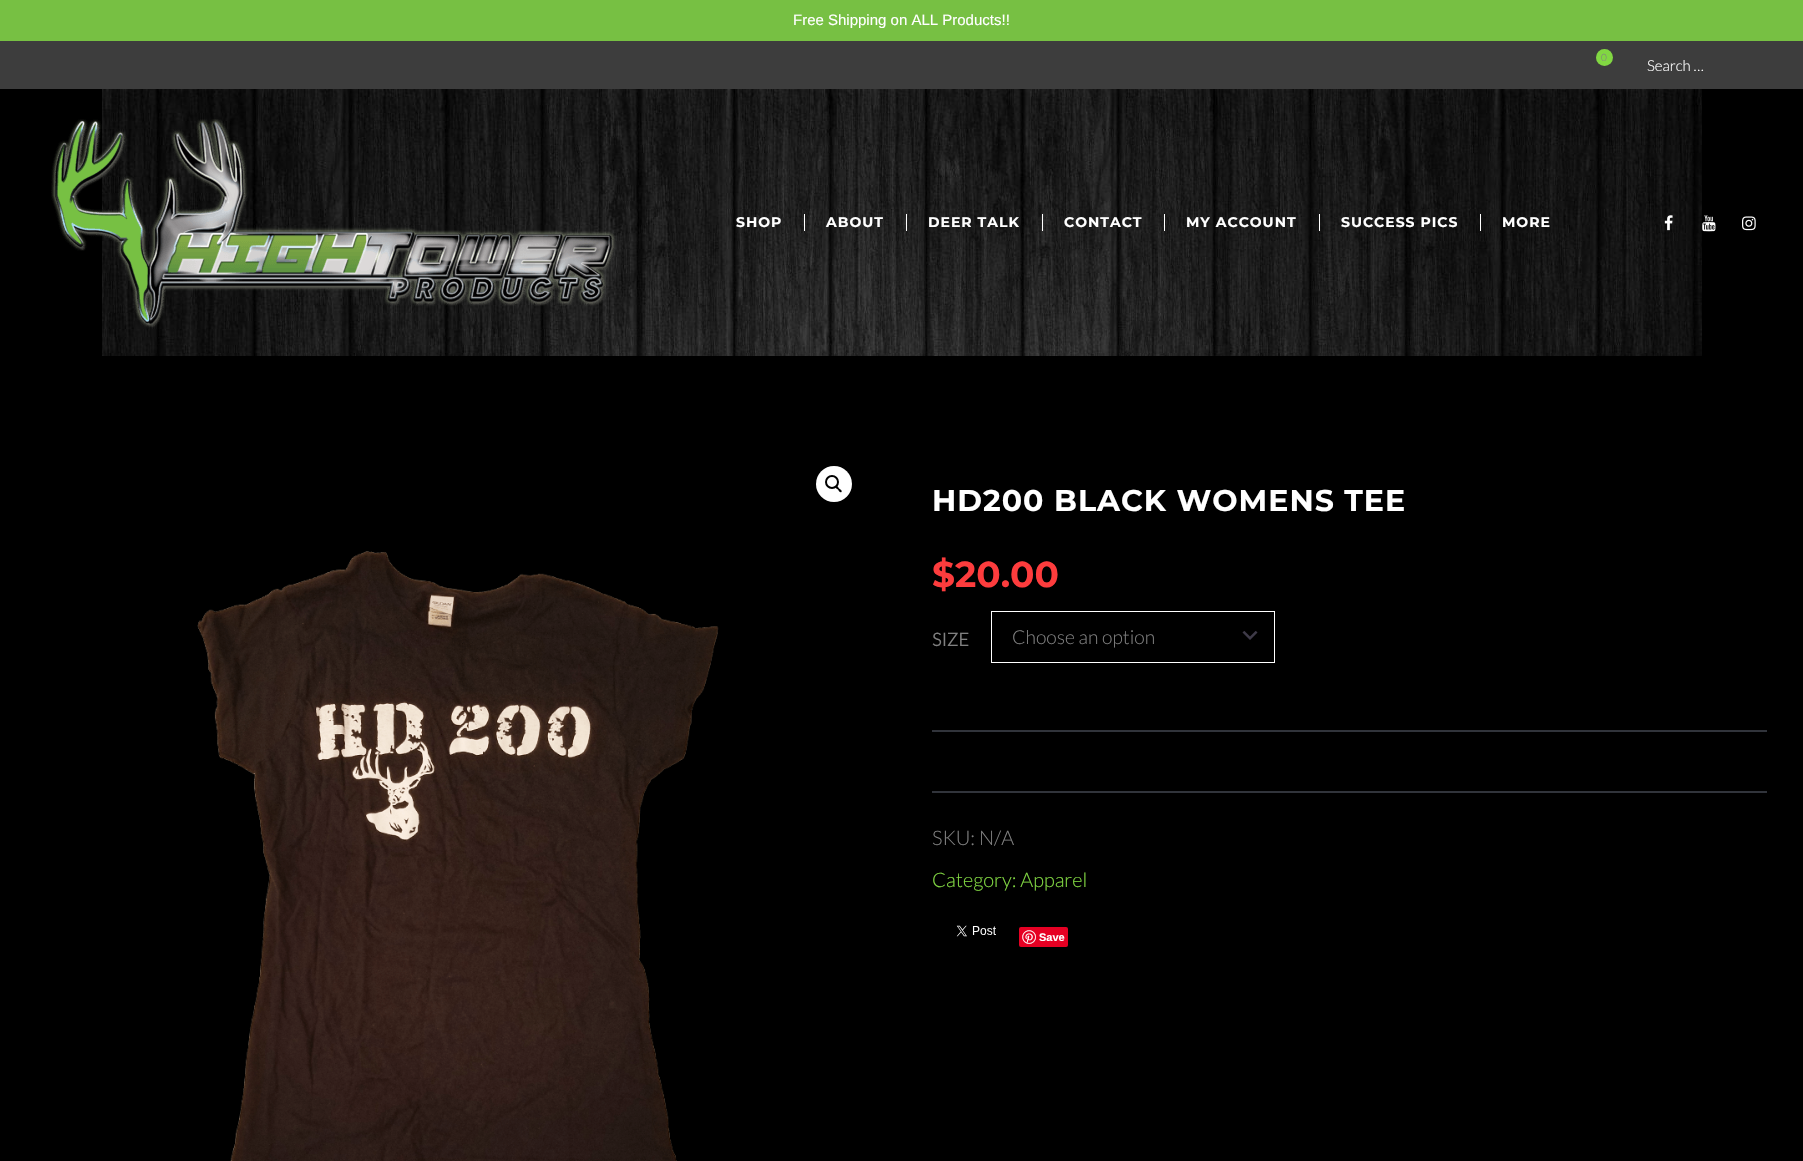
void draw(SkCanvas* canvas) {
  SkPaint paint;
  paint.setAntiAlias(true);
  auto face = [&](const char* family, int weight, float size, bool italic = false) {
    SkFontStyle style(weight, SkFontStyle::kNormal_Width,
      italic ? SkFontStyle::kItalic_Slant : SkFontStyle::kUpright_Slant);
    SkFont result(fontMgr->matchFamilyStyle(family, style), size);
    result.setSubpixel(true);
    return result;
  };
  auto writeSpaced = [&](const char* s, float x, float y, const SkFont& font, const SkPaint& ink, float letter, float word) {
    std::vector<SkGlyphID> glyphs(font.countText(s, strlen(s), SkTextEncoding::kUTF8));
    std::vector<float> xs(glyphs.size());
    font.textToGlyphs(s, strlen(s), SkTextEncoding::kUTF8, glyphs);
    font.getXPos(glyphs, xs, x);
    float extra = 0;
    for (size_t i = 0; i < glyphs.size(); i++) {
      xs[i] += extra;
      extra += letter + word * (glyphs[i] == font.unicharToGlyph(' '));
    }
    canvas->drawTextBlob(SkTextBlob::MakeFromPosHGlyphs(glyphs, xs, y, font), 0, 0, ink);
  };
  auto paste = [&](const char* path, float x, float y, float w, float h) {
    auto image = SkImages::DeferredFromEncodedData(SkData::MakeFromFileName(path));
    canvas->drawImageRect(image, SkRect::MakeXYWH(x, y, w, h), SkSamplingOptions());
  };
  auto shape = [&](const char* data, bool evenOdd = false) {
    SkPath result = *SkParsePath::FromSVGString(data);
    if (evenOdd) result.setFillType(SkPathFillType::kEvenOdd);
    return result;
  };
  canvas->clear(0xff000000);
  paint.setColor(0xff77c043);
  canvas->drawRect(SkRect::MakeXYWH(0, 0, 1803, 41), paint);
  paint.setColor(0xff3d3d3d);
  canvas->drawRect(SkRect::MakeXYWH(0, 41, 1803, 48), paint);
  paint.setColor(0xff81d742);
  canvas->drawCircle(1604.5f, 57.5f, 8.5f, paint);
  paste("img/1.png", 102, 89, 1600, 267);
  paste("img/2.png", 51, 119, 565, 209);
  {
    const struct { float x, y, w, h; SkColor color; } items[] = {
      {804, 214, 1, 17, 0xffffffff},
      {906, 214, 1, 17, 0xffffffff},
      {1042, 214, 1, 17, 0xffffffff},
      {1164, 214, 1, 17, 0xffffffff},
      {1319, 214, 1, 17, 0xffffffff},
      {1480, 214, 1, 17, 0xffffffff},
    };
    for (auto [x, y, w, h, color] : items) {
      paint.setColor(color);
      canvas->drawRect(SkRect::MakeXYWH(x, y, w, h), paint);
    }
  }
  paste("img/3.png", 1664, 215, 9, 16);
  paste("img/4.png", 1702, 215, 14, 17);
  paste("img/5.png", 1742, 216, 14, 15);
  canvas->drawCircle(834, 484, 18, paint);
  paint.setStroke(true);
  paint.setStrokeWidth(2);
  paint.setColor(0xff000000);
  canvas->drawCircle(832, 482, 6, paint);
  paint.setStroke(false);
  canvas->drawPath(shape("M835.5 486C837 485 838.5 487.5 839 488.5C840 489 842.5 490.5 841.5 492C840 493 838.5 490.5 838 489.5C837 489 834.5 487.5 835.5 486Z"), paint);
  paste("img/6.png", 197, 551, 522, 610);
  paint.setStroke(true);
  paint.setStrokeWidth(1);
  paint.setColor(0xffffffff);
  canvas->drawRect(SkRect::MakeXYWH(991.5f, 611.5f, 283, 51), paint);
  paste("img/7.png", 1242, 631, 16, 9);
  paint.setStroke(false);
  paint.setColor(0xff31343b);
  canvas->drawRect(SkRect::MakeXYWH(932, 730, 835, 2), paint);
  canvas->drawRect(SkRect::MakeXYWH(932, 791, 835, 2), paint);
  paste("img/8.png", 956, 925, 40, 12);
  paint.setColor(0xffe60023);
  canvas->drawRoundRect(SkRect::MakeXYWH(1019, 927, 49, 20), 2, 2, paint);
  paste("img/9.png", 1022, 930, 14, 14);
  auto f0 = face("Liberation Sans", 400, 15);
  paint.setColor(0xffffffff);
  canvas->drawString("Free Shipping on ALL Products!!", 793, 25, f0, paint);
  auto f1 = face("Lato", 300, 10);
  paint.setColor(0xff808080);
  canvas->drawString("0", 1601, 61, f1, paint);
  auto f2 = face("Lato", 300, 15);
  paint.setColor(0xffffffff);
  canvas->drawString("Search …", 1647, 71, f2, paint);
  auto f3 = face("Montserrat", 100, 14);
  {
    const struct { const char* s; float x, y; } items[] = {
      {"SHOP", 736, 227},
      {"ABOUT", 826, 227},
      {"DEER TALK", 928, 227},
      {"CONTACT", 1064, 227},
      {"MY ACCOUNT", 1186, 227},
      {"SUCCESS PICS", 1341, 227},
      {"MORE", 1502, 227},
    };
    for (auto [s, x, y] : items) {
      writeSpaced(s, x, y, f3, paint, 1, 0);
    }
  }
  auto f4 = face("Montserrat", 100, 30);
  writeSpaced("HD200 BLACK WOMENS TEE", 932, 511, f4, paint, 1, 0);
  auto f5 = face("Montserrat", 100, 36);
  paint.setColor(0xfffd3c3d);
  canvas->drawString("$20.00", 932, 587, f5, paint);
  auto f6 = face("Lato", 700, 18);
  paint.setColor(0xff808080);
  canvas->drawString("SIZE", 932, 646, f6, paint);
  auto f7 = face("Lato", 300, 19.25f);
  canvas->drawString("Choose an option", 1012, 644, f7, paint);
  auto f8 = face("Lato", 300, 20);
  canvas->drawString("SKU: N/A", 932, 845, f8, paint);
  paint.setColor(0xff81d742);
  canvas->drawString("Category: Apparel", 932, 887, f8, paint);
  auto f9 = face("Liberation Sans", 700, 11);
  paint.setColor(0xffffffff);
  canvas->drawString("Save", 1039, 941, f9, paint);
}
